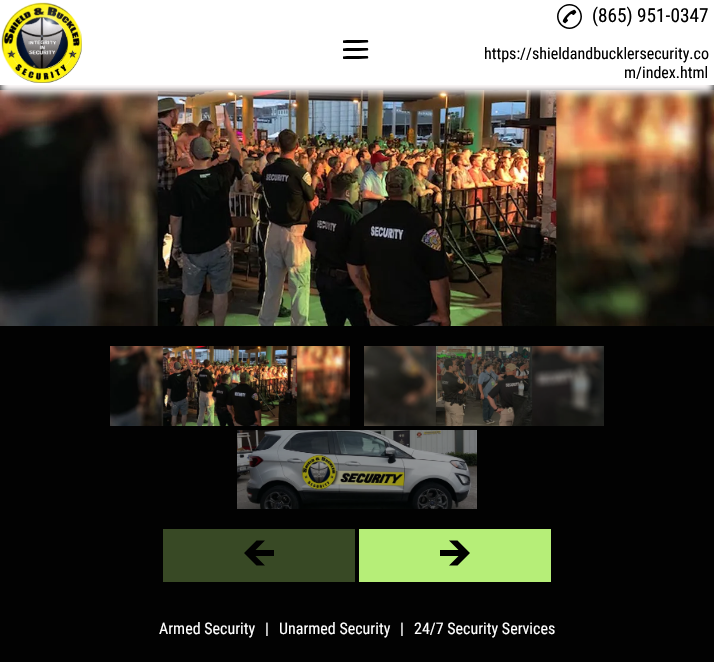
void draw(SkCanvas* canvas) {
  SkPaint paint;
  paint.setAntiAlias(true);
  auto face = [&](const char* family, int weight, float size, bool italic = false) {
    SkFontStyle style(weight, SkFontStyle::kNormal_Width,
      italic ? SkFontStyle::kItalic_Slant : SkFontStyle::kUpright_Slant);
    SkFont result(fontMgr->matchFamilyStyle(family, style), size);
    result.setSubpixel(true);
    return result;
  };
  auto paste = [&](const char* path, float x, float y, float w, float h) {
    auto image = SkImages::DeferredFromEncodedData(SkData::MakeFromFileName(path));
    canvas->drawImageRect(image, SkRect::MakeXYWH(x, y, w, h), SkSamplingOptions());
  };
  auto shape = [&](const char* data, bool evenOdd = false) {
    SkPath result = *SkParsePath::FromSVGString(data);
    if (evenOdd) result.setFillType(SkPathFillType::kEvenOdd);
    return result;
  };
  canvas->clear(0xff020202);
  paste("img/3.png", 0, 90, 714, 236);
  paint.setColor(0xfffffbfb);
  paint.setMaskFilter(SkMaskFilter::MakeBlur(kNormal_SkBlurStyle, 4));
  canvas->drawRect(SkRect::MakeXYWH(0, 8, 714, 85), paint);
  paint.setMaskFilter(nullptr);
  paint.setColor(0xffffffff);
  canvas->drawRect(SkRect::MakeXYWH(0, 0, 714, 85), paint);
  paste("img/1.png", 1, 2, 81, 81);
  paint.setColor(0xff000000);
  canvas->drawPath(shape("M347 40H367.5C368.5 40.5 368.5 42.5 367.5 42.5L358.5 43H343.5C343 42.5 343 42.5 343 41.5V40.5ZM347 48H367.5C368.5 48.5 368.5 50.5 367.5 50.5L358.5 51H343.5C343 50.5 343 50.5 343 49.5V48.5ZM347 56H367.5C368.5 56.5 368.5 58.5 367.5 58.5L358.5 59H343.5C343 58.5 343 58.5 343 57.5V56.5Z"), paint);
  paste("img/2.png", 557, 4, 25, 25);
  paste("img/4.png", 110, 346, 240, 80);
  paste("img/5.png", 364, 346, 240, 80);
  paste("img/6.png", 237, 430, 240, 79);
  {
    const struct { float x, y, w, h; SkColor color; } items[] = {
      {164, 530, 190, 49, 0xff384925},
      {163, 529, 192, 1, 0xff384925},
      {354, 529, 1, 53, 0xff384925},
      {163, 579, 192, 3, 0xff384925},
      {163, 529, 1, 53, 0xff384925},
    };
    for (auto [x, y, w, h, color] : items) {
      paint.setColor(color);
      canvas->drawRect(SkRect::MakeXYWH(x, y, w, h), paint);
    }
  }
  paint.setColor(0xff010101);
  canvas->drawPath(shape("M256.5 565.5L244 553L256.5 540.5H265L255.5 550H274V556H255.5L265 565.5Z"), paint);
  {
    const struct { float x, y, w, h; SkColor color; } items[] = {
      {360, 530, 190, 49, 0xffb6ee78},
      {359, 529, 192, 1, 0xffb6ee78},
      {550, 529, 1, 53, 0xffb6ee78},
      {359, 579, 192, 3, 0xffb6ee78},
      {359, 529, 1, 53, 0xffb6ee78},
    };
    for (auto [x, y, w, h, color] : items) {
      paint.setColor(color);
      canvas->drawRect(SkRect::MakeXYWH(x, y, w, h), paint);
    }
  }
  paint.setColor(0xff000000);
  canvas->drawPath(shape("M457.5 540.5L470 553L457.5 565.5H449L458.5 556H440V550H458.5L449 540.5Z"), paint);
  auto f0 = face("Roboto Condensed", 400, 19.25f);
  canvas->drawString("(865) 951-0347", 592, 22, f0, paint);
  auto f1 = face("Roboto Condensed", 400, 16);
  canvas->drawString("https://shieldandbucklersecurity.co", 484, 59, f1, paint);
  canvas->drawString("m/index.html", 624, 78, f1, paint);
  paint.setColor(0xffffffff);
  {
    const struct { const char* s; float x, y; } items[] = {
      {"Armed Security", 159, 634},
      {"|", 265, 634},
      {"Unarmed Security", 279, 634},
      {"|", 400, 634},
      {"24/7 Security Services", 414, 634},
    };
    for (auto [s, x, y] : items) {
      canvas->drawString(s, x, y, f1, paint);
    }
  }
}
